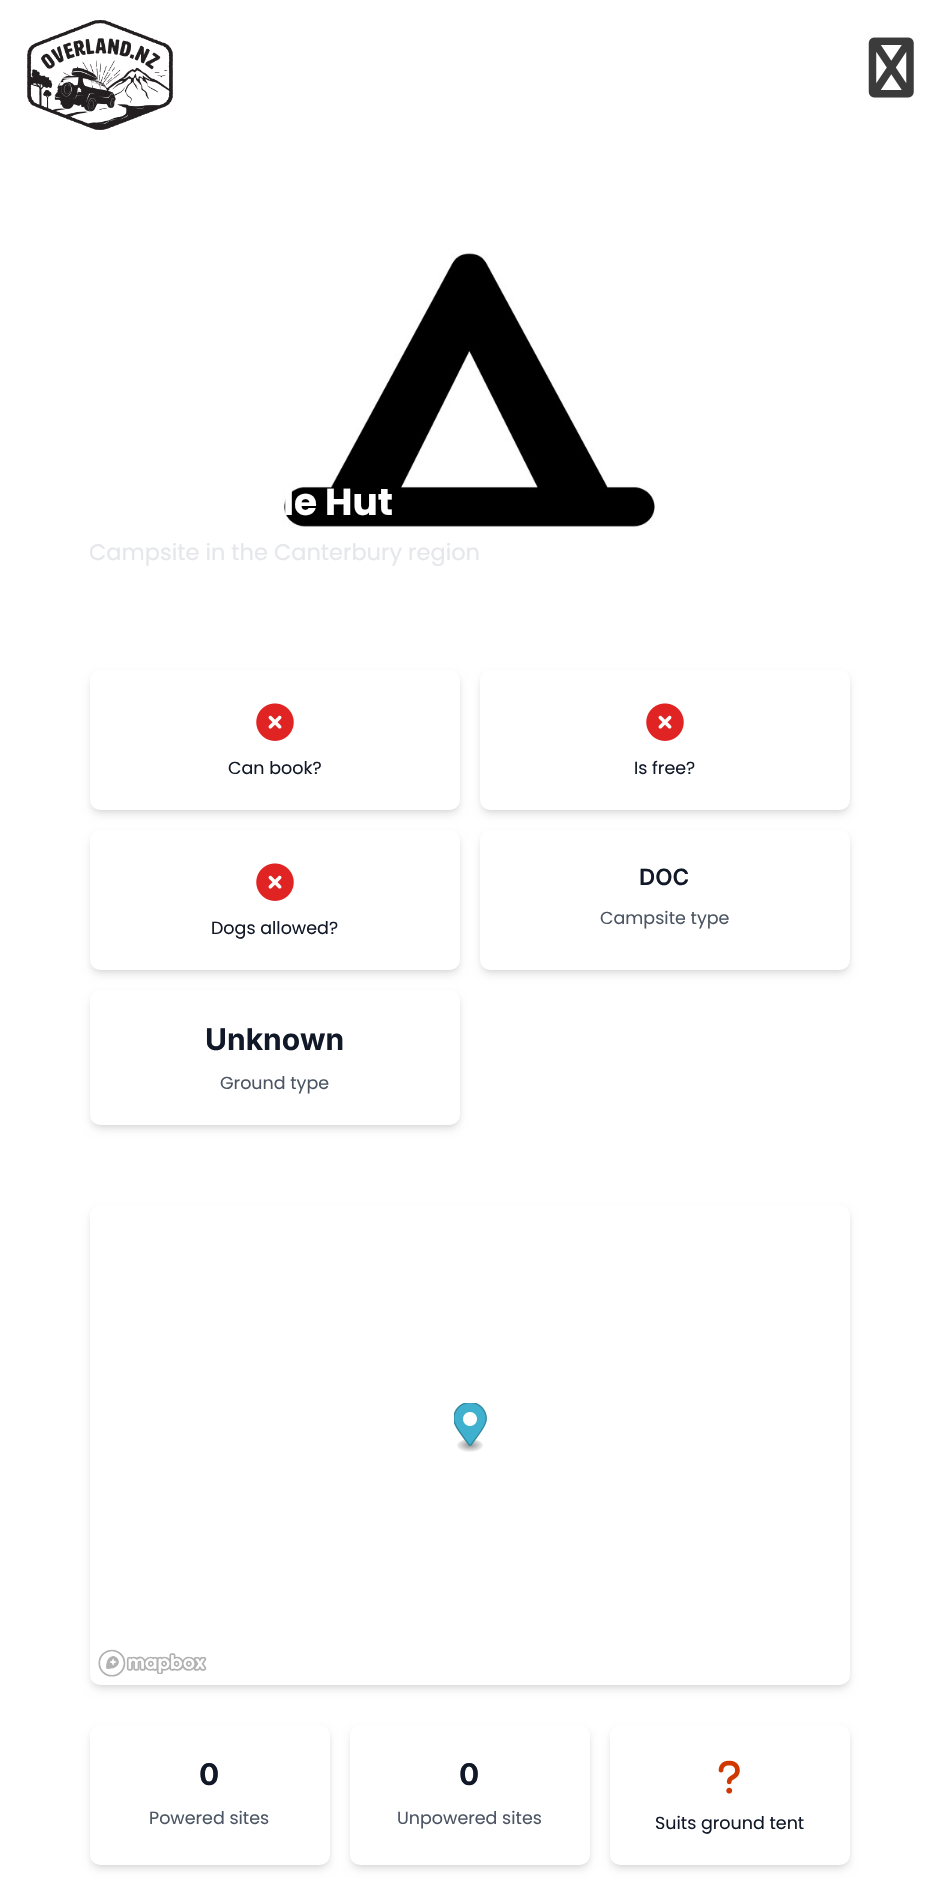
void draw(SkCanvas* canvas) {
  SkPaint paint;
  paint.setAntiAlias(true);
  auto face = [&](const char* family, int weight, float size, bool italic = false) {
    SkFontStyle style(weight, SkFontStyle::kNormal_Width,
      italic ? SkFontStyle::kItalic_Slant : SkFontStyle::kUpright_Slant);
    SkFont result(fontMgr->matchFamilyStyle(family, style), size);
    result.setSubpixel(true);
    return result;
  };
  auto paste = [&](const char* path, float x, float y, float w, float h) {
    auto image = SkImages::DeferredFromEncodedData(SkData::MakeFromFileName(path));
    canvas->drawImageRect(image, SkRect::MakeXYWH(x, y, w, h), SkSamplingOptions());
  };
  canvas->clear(0xffffffff);
  paste("img/1.png", 27, 20, 146, 110);
  paste("img/2.png", 868, 37, 46, 61);
  paste("img/3.png", 282, 253, 373, 275);
  paint.setColor(0x1a000000);
  paint.setMaskFilter(SkMaskFilter::MakeBlur(kNormal_SkBlurStyle, 2.5f));
  canvas->drawRoundRect(SkRect::MakeXYWH(93, 675, 365, 135), 8, 8, paint);
  paint.setMaskFilter(nullptr);
  paint.setMaskFilter(SkMaskFilter::MakeBlur(kNormal_SkBlurStyle, 4));
  canvas->drawRoundRect(SkRect::MakeXYWH(91, 676, 368, 138), 9, 9, paint);
  paint.setMaskFilter(nullptr);
  paint.setColor(0xffffffff);
  canvas->drawRoundRect(SkRect::MakeXYWH(90, 670, 370, 140), 10, 10, paint);
  paste("img/4.png", 256, 703, 38, 38);
  paint.setColor(0x1a000000);
  paint.setMaskFilter(SkMaskFilter::MakeBlur(kNormal_SkBlurStyle, 2.5f));
  canvas->drawRoundRect(SkRect::MakeXYWH(483, 675, 365, 135), 8, 8, paint);
  paint.setMaskFilter(nullptr);
  paint.setMaskFilter(SkMaskFilter::MakeBlur(kNormal_SkBlurStyle, 4));
  canvas->drawRoundRect(SkRect::MakeXYWH(481, 676, 368, 138), 9, 9, paint);
  paint.setMaskFilter(nullptr);
  paint.setColor(0xffffffff);
  canvas->drawRoundRect(SkRect::MakeXYWH(480, 670, 370, 140), 10, 10, paint);
  paste("img/4.png", 646, 703, 38, 38);
  paint.setColor(0x1a000000);
  paint.setMaskFilter(SkMaskFilter::MakeBlur(kNormal_SkBlurStyle, 2.5f));
  canvas->drawRoundRect(SkRect::MakeXYWH(93, 835, 365, 135), 8, 8, paint);
  paint.setMaskFilter(nullptr);
  paint.setMaskFilter(SkMaskFilter::MakeBlur(kNormal_SkBlurStyle, 4));
  canvas->drawRoundRect(SkRect::MakeXYWH(91, 836, 368, 138), 9, 9, paint);
  paint.setMaskFilter(nullptr);
  paint.setColor(0xffffffff);
  canvas->drawRoundRect(SkRect::MakeXYWH(90, 830, 370, 140), 10, 10, paint);
  paste("img/4.png", 256, 863, 38, 38);
  paint.setColor(0x1a000000);
  paint.setMaskFilter(SkMaskFilter::MakeBlur(kNormal_SkBlurStyle, 2.5f));
  canvas->drawRoundRect(SkRect::MakeXYWH(483, 835, 365, 135), 8, 8, paint);
  paint.setMaskFilter(nullptr);
  paint.setMaskFilter(SkMaskFilter::MakeBlur(kNormal_SkBlurStyle, 4));
  canvas->drawRoundRect(SkRect::MakeXYWH(481, 836, 368, 138), 9, 9, paint);
  paint.setMaskFilter(nullptr);
  paint.setColor(0xffffffff);
  canvas->drawRoundRect(SkRect::MakeXYWH(480, 830, 370, 140), 10, 10, paint);
  paint.setColor(0x1a000000);
  paint.setMaskFilter(SkMaskFilter::MakeBlur(kNormal_SkBlurStyle, 2.5f));
  canvas->drawRoundRect(SkRect::MakeXYWH(93, 995, 365, 130), 8, 8, paint);
  paint.setMaskFilter(nullptr);
  paint.setMaskFilter(SkMaskFilter::MakeBlur(kNormal_SkBlurStyle, 4));
  canvas->drawRoundRect(SkRect::MakeXYWH(91, 996, 368, 133), 9, 9, paint);
  paint.setMaskFilter(nullptr);
  paint.setColor(0xffffffff);
  canvas->drawRoundRect(SkRect::MakeXYWH(90, 990, 370, 135), 10, 10, paint);
  paint.setColor(0x1a000000);
  paint.setMaskFilter(SkMaskFilter::MakeBlur(kNormal_SkBlurStyle, 2.5f));
  canvas->drawRoundRect(SkRect::MakeXYWH(93, 1210, 755, 475), 8, 8, paint);
  paint.setMaskFilter(nullptr);
  paint.setMaskFilter(SkMaskFilter::MakeBlur(kNormal_SkBlurStyle, 4));
  canvas->drawRoundRect(SkRect::MakeXYWH(91, 1211, 758, 478), 9, 9, paint);
  paint.setMaskFilter(nullptr);
  paint.setColor(0xffffffff);
  canvas->drawRoundRect(SkRect::MakeXYWH(90, 1205, 760, 480), 10, 10, paint);
  paste("img/5.png", 454, 1403, 33, 49);
  paste("img/6.png", 98, 1649, 109, 28);
  paint.setColor(0x1a000000);
  paint.setMaskFilter(SkMaskFilter::MakeBlur(kNormal_SkBlurStyle, 2.5f));
  canvas->drawRoundRect(SkRect::MakeXYWH(93, 1730, 235, 135), 8, 8, paint);
  paint.setMaskFilter(nullptr);
  paint.setMaskFilter(SkMaskFilter::MakeBlur(kNormal_SkBlurStyle, 4));
  canvas->drawRoundRect(SkRect::MakeXYWH(91, 1731, 238, 138), 9, 9, paint);
  paint.setMaskFilter(nullptr);
  paint.setColor(0xffffffff);
  canvas->drawRoundRect(SkRect::MakeXYWH(90, 1725, 240, 140), 10, 10, paint);
  paint.setColor(0x1a000000);
  paint.setMaskFilter(SkMaskFilter::MakeBlur(kNormal_SkBlurStyle, 2.5f));
  canvas->drawRoundRect(SkRect::MakeXYWH(353, 1730, 235, 135), 8, 8, paint);
  paint.setMaskFilter(nullptr);
  paint.setMaskFilter(SkMaskFilter::MakeBlur(kNormal_SkBlurStyle, 4));
  canvas->drawRoundRect(SkRect::MakeXYWH(351, 1731, 238, 138), 9, 9, paint);
  paint.setMaskFilter(nullptr);
  paint.setColor(0xffffffff);
  canvas->drawRoundRect(SkRect::MakeXYWH(350, 1725, 240, 140), 10, 10, paint);
  paint.setColor(0x1a000000);
  paint.setMaskFilter(SkMaskFilter::MakeBlur(kNormal_SkBlurStyle, 2.5f));
  canvas->drawRoundRect(SkRect::MakeXYWH(613, 1730, 235, 135), 8, 8, paint);
  paint.setMaskFilter(nullptr);
  paint.setMaskFilter(SkMaskFilter::MakeBlur(kNormal_SkBlurStyle, 4));
  canvas->drawRoundRect(SkRect::MakeXYWH(611, 1731, 238, 138), 9, 9, paint);
  paint.setMaskFilter(nullptr);
  paint.setColor(0xffffffff);
  canvas->drawRoundRect(SkRect::MakeXYWH(610, 1725, 240, 140), 10, 10, paint);
  paste("img/7.png", 718, 1760, 22, 34);
  auto f0 = face("Poppins", 700, 37.5f);
  canvas->drawString("le Hut", 283, 515, f0, paint);
  auto f1 = face("Poppins", 400, 22.5f);
  paint.setColor(0xffe5e7eb);
  canvas->drawString("Campsite in the Canterbury region", 89, 560, f1, paint);
  auto f2 = face("Poppins", 400, 17.5f);
  paint.setColor(0xff111827);
  {
    const struct { const char* s; float x, y; } items[] = {
      {"Can book?", 228, 774},
      {"Is free?", 634, 774},
      {"Dogs allowed?", 211, 934},
    };
    for (auto [s, x, y] : items) {
      canvas->drawString(s, x, y, f2, paint);
    }
  }
  auto f3 = face("Inter", 600, 22.5f);
  canvas->drawString("DOC", 639, 885, f3, paint);
  paint.setColor(0xff4b5563);
  canvas->drawString("Campsite type", 600, 924, f2, paint);
  auto f4 = face("Inter", 700, 30);
  paint.setColor(0xff111827);
  canvas->drawString("Unknown", 205, 1050, f4, paint);
  paint.setColor(0xff4b5563);
  canvas->drawString("Ground type", 220, 1089, f2, paint);
  paint.setColor(0xff111827);
  canvas->drawString("0", 199, 1785, f4, paint);
  paint.setColor(0xff4b5563);
  canvas->drawString("Powered sites", 149, 1824, f2, paint);
  paint.setColor(0xff111827);
  canvas->drawString("0", 459, 1785, f4, paint);
  paint.setColor(0xff4b5563);
  canvas->drawString("Unpowered sites", 397, 1824, f2, paint);
  paint.setColor(0xff111827);
  canvas->drawString("Suits ground tent", 655, 1829, f2, paint);
}
